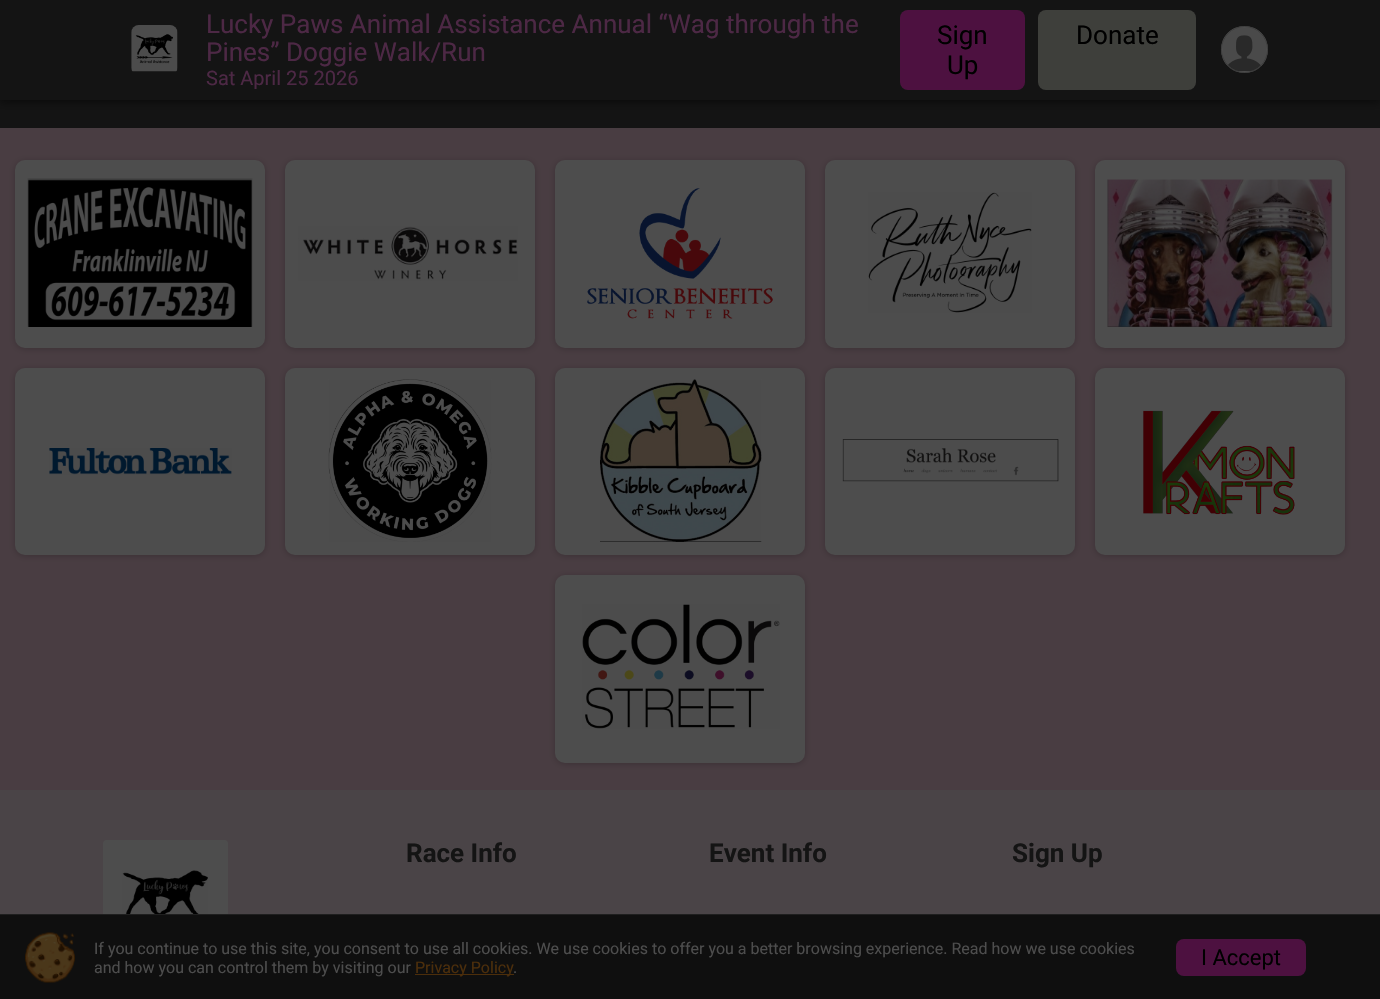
void draw(SkCanvas* canvas) {
  SkPaint paint;
  paint.setAntiAlias(true);
  auto face = [&](const char* family, int weight, float size, bool italic = false) {
    SkFontStyle style(weight, SkFontStyle::kNormal_Width,
      italic ? SkFontStyle::kItalic_Slant : SkFontStyle::kUpright_Slant);
    SkFont result(fontMgr->matchFamilyStyle(family, style), size);
    result.setSubpixel(true);
    return result;
  };
  auto paste = [&](const char* path, float x, float y, float w, float h) {
    auto image = SkImages::DeferredFromEncodedData(SkData::MakeFromFileName(path));
    canvas->drawImageRect(image, SkRect::MakeXYWH(x, y, w, h), SkSamplingOptions());
  };
  canvas->clear(0xff141414);
  paint.setColor(0x99000000);
  paint.setMaskFilter(SkMaskFilter::MakeBlur(kNormal_SkBlurStyle, 5));
  canvas->drawRect(SkRect::MakeXYWH(-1, -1, 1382, 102), paint);
  paint.setMaskFilter(nullptr);
  paint.setColor(0xff141414);
  canvas->drawRect(SkRect::MakeXYWH(0, 0, 1380, 100), paint);
  paste("img/1.png", 131, 25, 47, 47);
  paint.setColor(0xff4d1140);
  canvas->drawRoundRect(SkRect::MakeXYWH(900, 10, 125, 80), 8, 8, paint);
  paint.setColor(0xff3e3f3b);
  canvas->drawRoundRect(SkRect::MakeXYWH(1038, 10, 158, 80), 8, 8, paint);
  paint.setColor(0xff4d4d4d);
  canvas->drawCircle(1244.5f, 49.5f, 23.5f, paint);
  paste("img/2.png", 1223, 28, 43, 43);
  paint.setStroke(true);
  paint.setStrokeWidth(1);
  paint.setColor(0xff3d3d3d);
  canvas->drawCircle(1244.5f, 49.5f, 23, paint);
  paint.setStroke(false);
  paint.setColor(0xff493d42);
  canvas->drawRect(SkRect::MakeXYWH(0, 128, 1380, 662), paint);
  paint.setColor(0x33000000);
  paint.setMaskFilter(SkMaskFilter::MakeBlur(kNormal_SkBlurStyle, 3));
  canvas->drawRoundRect(SkRect::MakeXYWH(15, 161, 250, 188), 10, 10, paint);
  paint.setMaskFilter(nullptr);
  paint.setColor(0xff4d4d4d);
  canvas->drawRoundRect(SkRect::MakeXYWH(15, 160, 250, 188), 10, 10, paint);
  paste("img/3.png", 27, 178, 226, 149);
  paint.setColor(0x33000000);
  paint.setMaskFilter(SkMaskFilter::MakeBlur(kNormal_SkBlurStyle, 3));
  canvas->drawRoundRect(SkRect::MakeXYWH(285, 161, 250, 188), 10, 10, paint);
  paint.setMaskFilter(nullptr);
  paint.setColor(0xff4d4d4d);
  canvas->drawRoundRect(SkRect::MakeXYWH(285, 160, 250, 188), 10, 10, paint);
  paste("img/4.png", 298, 226, 220, 55);
  paint.setColor(0x33000000);
  paint.setMaskFilter(SkMaskFilter::MakeBlur(kNormal_SkBlurStyle, 3));
  canvas->drawRoundRect(SkRect::MakeXYWH(555, 161, 250, 188), 10, 10, paint);
  paint.setMaskFilter(nullptr);
  paint.setColor(0xff4d4d4d);
  canvas->drawRoundRect(SkRect::MakeXYWH(555, 160, 250, 188), 10, 10, paint);
  paste("img/5.png", 587, 188, 186, 131);
  paint.setColor(0x33000000);
  paint.setMaskFilter(SkMaskFilter::MakeBlur(kNormal_SkBlurStyle, 3));
  canvas->drawRoundRect(SkRect::MakeXYWH(825, 161, 250, 188), 10, 10, paint);
  paint.setMaskFilter(nullptr);
  paint.setColor(0xff4d4d4d);
  canvas->drawRoundRect(SkRect::MakeXYWH(825, 160, 250, 188), 10, 10, paint);
  paste("img/6.png", 868, 192, 164, 121);
  paint.setColor(0x33000000);
  paint.setMaskFilter(SkMaskFilter::MakeBlur(kNormal_SkBlurStyle, 3));
  canvas->drawRoundRect(SkRect::MakeXYWH(1095, 161, 250, 188), 10, 10, paint);
  paint.setMaskFilter(nullptr);
  paint.setColor(0xff4d4d4d);
  canvas->drawRoundRect(SkRect::MakeXYWH(1095, 160, 250, 188), 10, 10, paint);
  paste("img/7.png", 1107, 179, 226, 148);
  paint.setColor(0x33000000);
  paint.setMaskFilter(SkMaskFilter::MakeBlur(kNormal_SkBlurStyle, 3));
  canvas->drawRoundRect(SkRect::MakeXYWH(15, 369, 250, 187), 10, 10, paint);
  paint.setMaskFilter(nullptr);
  paint.setColor(0xff4d4d4d);
  canvas->drawRoundRect(SkRect::MakeXYWH(15, 368, 250, 187), 10, 10, paint);
  paste("img/8.png", 49, 448, 183, 27);
  paint.setColor(0x33000000);
  paint.setMaskFilter(SkMaskFilter::MakeBlur(kNormal_SkBlurStyle, 3));
  canvas->drawRoundRect(SkRect::MakeXYWH(285, 369, 250, 187), 10, 10, paint);
  paint.setMaskFilter(nullptr);
  paint.setColor(0xff4d4d4d);
  canvas->drawRoundRect(SkRect::MakeXYWH(285, 368, 250, 187), 10, 10, paint);
  paste("img/9.png", 328, 379, 164, 163);
  paint.setColor(0x33000000);
  paint.setMaskFilter(SkMaskFilter::MakeBlur(kNormal_SkBlurStyle, 3));
  canvas->drawRoundRect(SkRect::MakeXYWH(555, 369, 250, 187), 10, 10, paint);
  paint.setMaskFilter(nullptr);
  paint.setColor(0xff4d4d4d);
  canvas->drawRoundRect(SkRect::MakeXYWH(555, 368, 250, 187), 10, 10, paint);
  paste("img/10.png", 600, 379, 162, 163);
  paint.setColor(0x33000000);
  paint.setMaskFilter(SkMaskFilter::MakeBlur(kNormal_SkBlurStyle, 3));
  canvas->drawRoundRect(SkRect::MakeXYWH(825, 369, 250, 187), 10, 10, paint);
  paint.setMaskFilter(nullptr);
  paint.setColor(0xff4d4d4d);
  canvas->drawRoundRect(SkRect::MakeXYWH(825, 368, 250, 187), 10, 10, paint);
  paste("img/11.png", 842, 439, 217, 43);
  paint.setColor(0x33000000);
  paint.setMaskFilter(SkMaskFilter::MakeBlur(kNormal_SkBlurStyle, 3));
  canvas->drawRoundRect(SkRect::MakeXYWH(1095, 369, 250, 187), 10, 10, paint);
  paint.setMaskFilter(nullptr);
  paint.setColor(0xff4d4d4d);
  canvas->drawRoundRect(SkRect::MakeXYWH(1095, 368, 250, 187), 10, 10, paint);
  paste("img/12.png", 1143, 410, 152, 105);
  paint.setColor(0x33000000);
  paint.setMaskFilter(SkMaskFilter::MakeBlur(kNormal_SkBlurStyle, 3));
  canvas->drawRoundRect(SkRect::MakeXYWH(555, 576, 250, 188), 10, 10, paint);
  paint.setMaskFilter(nullptr);
  paint.setColor(0xff4d4d4d);
  canvas->drawRoundRect(SkRect::MakeXYWH(555, 575, 250, 188), 10, 10, paint);
  paste("img/13.png", 582, 604, 198, 125);
  paint.setColor(0xff4a4447);
  canvas->drawRect(SkRect::MakeXYWH(0, 790, 1380, 124), paint);
  paint.setColor(0xff4d4d4d);
  canvas->drawRoundRect(SkRect::MakeXYWH(103, 840, 125, 125), 4, 4, paint);
  paste("img/14.png", 122, 870, 86, 44);
  paint.setColor(0xff0f0f0f);
  canvas->drawRect(SkRect::MakeXYWH(0, 915, 1380, 84), paint);
  paint.setColor(0xff1f1f1f);
  canvas->drawRect(SkRect::MakeXYWH(0, 914, 1380, 1), paint);
  paste("img/15.png", 25, 932, 50, 51);
  paint.setColor(0xff4c2e0b);
  canvas->drawRect(SkRect::MakeXYWH(415, 974, 99, 1), paint);
  paint.setColor(0xff4d1140);
  canvas->drawRoundRect(SkRect::MakeXYWH(1176, 939, 130, 37), 8, 8, paint);
  auto f0 = face("Roboto", 400, 26);
  paint.setColor(0xff4d2845);
  canvas->drawString("Lucky Paws Animal Assistance Annual “Wag through the", 206, 33, f0, paint);
  canvas->drawString("Pines” Doggie Walk/Run", 206, 61, f0, paint);
  auto f1 = face("Roboto", 400, 20);
  canvas->drawString("Sat April 25 2026", 206, 85, f1, paint);
  paint.setColor(0xff000000);
  {
    const struct { const char* s; float x, y; } items[] = {
      {"Sign", 937, 44},
      {"Up", 947, 74},
      {"Donate", 1076, 44},
    };
    for (auto [s, x, y] : items) {
      canvas->drawString(s, x, y, f0, paint);
    }
  }
  auto f2 = face("Roboto", 700, 26);
  paint.setColor(0xff141414);
  {
    const struct { const char* s; float x, y; } items[] = {
      {"Race Info", 406, 862},
      {"Event Info", 709, 862},
      {"Sign Up", 1012, 862},
    };
    for (auto [s, x, y] : items) {
      canvas->drawString(s, x, y, f2, paint);
    }
  }
  auto f3 = face("Roboto", 400, 16);
  paint.setColor(0xff4d4d4d);
  canvas->drawString("If you continue to use this site, you consent to use all cookies. We use cookies to offer you a better browsing experience. Read how we use cookies", 94, 954, f3, paint);
  canvas->drawString("and how you can control them by visiting our", 94, 973, f3, paint);
  paint.setColor(0xff4c2e0b);
  canvas->drawString("Privacy Policy", 415, 973, f3, paint);
  paint.setColor(0xff4d4d4d);
  canvas->drawString(".", 513, 973, f3, paint);
  auto f4 = face("Roboto", 400, 22);
  paint.setColor(0xff000000);
  canvas->drawString("I Accept", 1201, 965, f4, paint);
}
